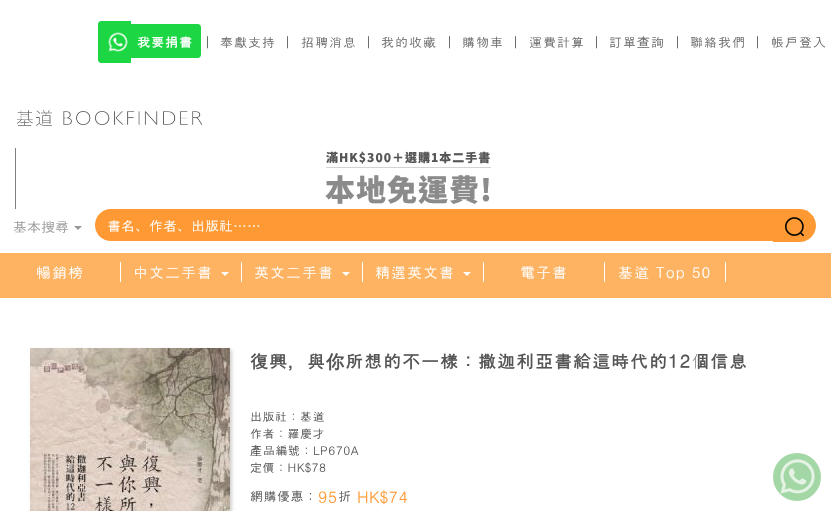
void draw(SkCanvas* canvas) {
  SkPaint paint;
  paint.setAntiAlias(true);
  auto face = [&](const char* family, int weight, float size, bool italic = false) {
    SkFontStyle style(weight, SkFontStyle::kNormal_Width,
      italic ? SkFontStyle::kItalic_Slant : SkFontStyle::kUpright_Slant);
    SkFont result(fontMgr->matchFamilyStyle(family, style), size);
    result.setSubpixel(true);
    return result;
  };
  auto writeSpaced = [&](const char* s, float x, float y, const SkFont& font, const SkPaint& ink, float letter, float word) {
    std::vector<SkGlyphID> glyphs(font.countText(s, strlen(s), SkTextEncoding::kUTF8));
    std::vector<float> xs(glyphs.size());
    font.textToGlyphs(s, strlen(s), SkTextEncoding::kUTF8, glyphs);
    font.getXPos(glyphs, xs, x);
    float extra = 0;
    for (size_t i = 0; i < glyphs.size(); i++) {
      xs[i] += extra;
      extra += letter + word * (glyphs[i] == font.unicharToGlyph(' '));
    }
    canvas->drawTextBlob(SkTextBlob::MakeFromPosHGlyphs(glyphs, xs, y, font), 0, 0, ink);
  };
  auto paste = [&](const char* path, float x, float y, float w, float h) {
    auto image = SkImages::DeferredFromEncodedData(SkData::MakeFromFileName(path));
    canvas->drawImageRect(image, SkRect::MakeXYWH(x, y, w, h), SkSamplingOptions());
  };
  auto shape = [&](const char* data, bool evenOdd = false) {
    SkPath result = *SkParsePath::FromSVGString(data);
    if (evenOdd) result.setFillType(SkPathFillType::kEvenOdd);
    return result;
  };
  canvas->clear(0xffffffff);
  paint.setColor(0xff1cd743);
  canvas->drawPath(shape("M101 21H131V63H101C99.5 63 98 61.5 98 60V24C98 22.5 99.5 21 101 21Z"), paint);
  paste("img/1.png", 108, 32, 20, 20);
  canvas->drawPath(shape("M131 24H198C199.5 24 201 25.5 201 27V55C201 56.5 199.5 58 198 58H131Z"), paint);
  paste("img/2.png", 16, 110, 187, 16);
  paint.setColor(0xff808080);
  canvas->drawRect(SkRect::MakeXYWH(15, 148, 1, 61), paint);
  paint.setColor(0xffd3d3d3);
  canvas->drawRect(SkRect::MakeXYWH(326, 167, 165, 1), paint);
  paint.setColor(0xff999999);
  canvas->drawPath(shape("M74 226H82L78 230Z"), paint);
  paint.setColor(0xffff9933);
  canvas->drawPath(shape("M111 209H773V241H111C102 241 95 234 95 225C95 216 102 209 111 209Z"), paint);
  canvas->drawPath(shape("M773 209H799.5C808.5 209 816 216.5 816 225.5C816 234.5 808.5 242 799.5 242H773Z"), paint);
  paste("img/3.png", 785, 217, 19, 20);
  {
    const struct { float x, y, w, h; SkColor color; } items[] = {
      {0, 253, 831, 45, 0xfffeb363},
      {120, 262, 1, 20, 0xffffffff},
      {241, 262, 1, 20, 0xffffffff},
    };
    for (auto [x, y, w, h, color] : items) {
      paint.setColor(color);
      canvas->drawRect(SkRect::MakeXYWH(x, y, w, h), paint);
    }
  }
  canvas->drawPath(shape("M221 272H229L225 276Z"), paint);
  canvas->drawRect(SkRect::MakeXYWH(362, 262, 1, 20), paint);
  canvas->drawPath(shape("M342 272H350L346 276Z"), paint);
  canvas->drawRect(SkRect::MakeXYWH(483, 262, 1, 20), paint);
  canvas->drawPath(shape("M463 272H471L467 276Z"), paint);
  canvas->drawRect(SkRect::MakeXYWH(604, 262, 1, 20), paint);
  canvas->drawRect(SkRect::MakeXYWH(725, 262, 1, 20), paint);
  paint.setColor(0xffd3d3d3);
  paint.setMaskFilter(SkMaskFilter::MakeBlur(kNormal_SkBlurStyle, 1.5f));
  canvas->drawRect(SkRect::MakeXYWH(32, 350, 200, 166), paint);
  paint.setMaskFilter(nullptr);
  paste("img/4.png", 30, 348, 200, 163);
  paint.setColor(0xffa3d7a5);
  canvas->drawCircle(797, 477, 24, paint);
  paste("img/5.png", 780, 459, 35, 35);
  auto f0 = face("Dotum", 700, 13);
  paint.setColor(0xffffffff);
  writeSpaced("我要捐書", 137, 47, f0, paint, 1, 0);
  auto f1 = face("Dotum", 400, 13);
  paint.setColor(0xff555555);
  writeSpaced("｜", 201, 47, f1, paint, 1, 0);
  paint.setColor(0xff696969);
  writeSpaced("奉獻支持", 220, 47, f1, paint, 1, 0);
  paint.setColor(0xff555555);
  writeSpaced("｜", 281, 47, f1, paint, 1, 0);
  paint.setColor(0xff696969);
  writeSpaced("招聘消息", 301, 47, f1, paint, 1, 0);
  paint.setColor(0xff555555);
  writeSpaced("｜", 362, 47, f1, paint, 1, 0);
  paint.setColor(0xff696969);
  writeSpaced("我的收藏", 381, 47, f1, paint, 1, 0);
  paint.setColor(0xff555555);
  writeSpaced("｜", 443, 47, f1, paint, 1, 0);
  paint.setColor(0xff696969);
  writeSpaced("購物車", 462, 47, f1, paint, 1, 0);
  paint.setColor(0xff555555);
  writeSpaced("｜", 509, 47, f1, paint, 1, 0);
  paint.setColor(0xff696969);
  writeSpaced("運費計算", 529, 47, f1, paint, 1, 0);
  paint.setColor(0xff555555);
  writeSpaced("｜", 590, 47, f1, paint, 1, 0);
  paint.setColor(0xff696969);
  writeSpaced("訂單", 609, 47, f1, paint, 1, 0);
  auto f2 = face("WenQuanYi Zen Hei", 500, 13);
  writeSpaced("查", 637, 47, f2, paint, 1, 0);
  writeSpaced("詢", 651, 47, f1, paint, 1, 0);
  paint.setColor(0xff555555);
  writeSpaced("｜", 671, 47, f1, paint, 1, 0);
  paint.setColor(0xff696969);
  writeSpaced("聯絡我們", 690, 47, f1, paint, 1, 0);
  paint.setColor(0xff555555);
  writeSpaced("｜", 751, 47, f1, paint, 1, 0);
  paint.setColor(0xff696969);
  writeSpaced("帳戶登入", 771, 47, f1, paint, 1, 0);
  auto f3 = face("Noto Sans TC", 900, 12);
  paint.setColor(0xff555555);
  writeSpaced("滿HK$300＋選購1本二手書", 326, 162, f3, paint, 1, 0);
  auto f4 = face("Noto Sans TC", 900, 30);
  paint.setColor(0xff8b8b8b);
  writeSpaced("本地免運費!", 325, 201, f4, paint, 1, 0);
  auto f5 = face("Dotum", 400, 14);
  paint.setColor(0xff999999);
  canvas->drawString("基本搜尋", 13, 232, f5, paint);
  paint.setColor(0xffffffff);
  canvas->drawString("書名、作者、出版社……", 107, 231, f5, paint);
  auto f6 = face("Dotum", 400, 15);
  {
    const struct { const char* s; float x, y; } items[] = {
      {"暢銷榜", 36, 278},
      {"中文二手書", 133, 278},
      {"英文二手書", 254, 278},
      {"精選英文書", 375, 278},
      {"電子書", 520, 278},
      {"基道 Top 50", 618, 278},
    };
    for (auto [s, x, y] : items) {
      writeSpaced(s, x, y, f6, paint, 1, 0);
    }
  }
  auto f7 = face("Dotum", 700, 18);
  paint.setColor(0xff555555);
  writeSpaced("復興，與", 250, 368, f7, paint, 1, 0);
  auto f8 = face("WenQuanYi Zen Hei", 700, 18);
  writeSpaced("你", 326, 368, f8, paint, 1, 0);
  writeSpaced("所想的不一樣：撒迦利亞書給這時代的12個信息", 345, 368, f7, paint, 1, 0);
  auto f9 = face("Dotum", 400, 12);
  writeSpaced("出版社：基道", 250, 421, f9, paint, 0.5f, 0);
  writeSpaced("作者：羅慶才", 250, 438, f9, paint, 0.5f, 0);
  auto f10 = face("WenQuanYi Zen Hei", 500, 12);
  writeSpaced("產", 250, 455, f10, paint, 0.5f, 0);
  writeSpaced("品編號：LP670A", 263, 455, f9, paint, 0.5f, 0);
  writeSpaced("定價：HK$78", 250, 472, f9, paint, 0.5f, 0);
  writeSpaced("網購優惠：", 250, 501, f1, paint, 0.5f, 0);
  auto f11 = face("Dotum", 400, 16);
  paint.setColor(0xffff9933);
  writeSpaced("95", 318, 503, f11, paint, 0.5f, 0);
  paint.setColor(0xff555555);
  writeSpaced("折", 338, 501, f1, paint, 0.5f, 0);
  paint.setColor(0xffff9933);
  writeSpaced("HK$74", 357, 503, f11, paint, 0.5f, 0);
}
